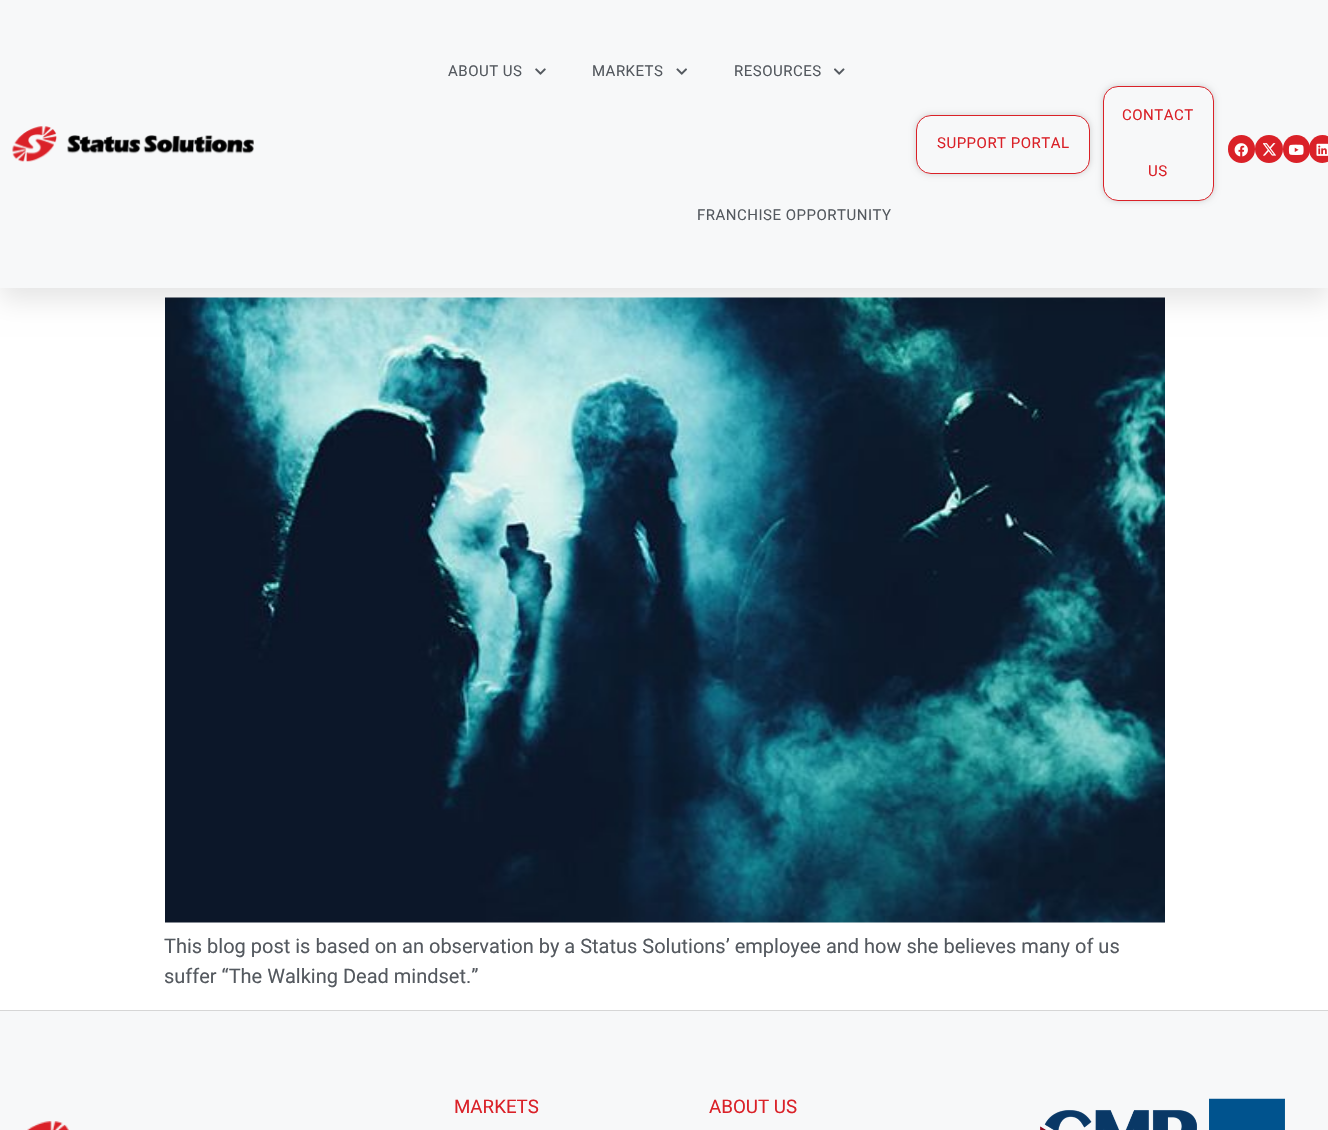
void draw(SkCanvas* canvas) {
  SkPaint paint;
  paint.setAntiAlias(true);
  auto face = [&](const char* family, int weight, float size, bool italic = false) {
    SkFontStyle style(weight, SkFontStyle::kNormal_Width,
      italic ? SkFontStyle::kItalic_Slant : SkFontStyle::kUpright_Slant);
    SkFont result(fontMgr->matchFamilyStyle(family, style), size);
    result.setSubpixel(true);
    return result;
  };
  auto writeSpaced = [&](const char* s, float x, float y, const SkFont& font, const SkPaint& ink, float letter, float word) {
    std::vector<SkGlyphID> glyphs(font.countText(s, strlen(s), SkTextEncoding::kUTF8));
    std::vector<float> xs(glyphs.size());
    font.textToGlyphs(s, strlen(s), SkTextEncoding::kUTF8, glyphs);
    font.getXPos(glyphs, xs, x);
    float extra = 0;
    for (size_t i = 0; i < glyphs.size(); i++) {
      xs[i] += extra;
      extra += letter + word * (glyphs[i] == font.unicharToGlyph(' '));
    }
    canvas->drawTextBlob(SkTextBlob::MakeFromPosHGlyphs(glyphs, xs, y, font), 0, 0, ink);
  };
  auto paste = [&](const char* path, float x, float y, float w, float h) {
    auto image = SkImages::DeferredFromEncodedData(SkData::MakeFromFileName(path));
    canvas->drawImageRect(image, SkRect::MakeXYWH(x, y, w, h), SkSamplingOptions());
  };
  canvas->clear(0xffffffff);
  paste("img/9.png", 165, 297, 1000, 626);
  paint.setColor(0x1a000000);
  paint.setMaskFilter(SkMaskFilter::MakeBlur(kNormal_SkBlurStyle, 12.5f));
  canvas->drawRect(SkRect::MakeXYWH(0, 13, 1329, 287), paint);
  paint.setMaskFilter(nullptr);
  paint.setColor(0xfff7f8f9);
  canvas->drawRect(SkRect::MakeXYWH(0, 0, 1328, 288), paint);
  paste("img/1.png", 12, 126, 242, 36);
  paste("img/2.png", 535, 68, 11, 7);
  paste("img/3.png", 676, 68, 11, 7);
  paste("img/4.png", 834, 68, 11, 7);
  paint.setColor(0x2b000000);
  paint.setMaskFilter(SkMaskFilter::MakeBlur(kNormal_SkBlurStyle, 3));
  canvas->drawRoundRect(SkRect::MakeXYWH(916, 115, 174, 59), 15, 15, paint);
  paint.setMaskFilter(nullptr);
  paint.setColor(0xfff7f8f9);
  canvas->drawRoundRect(SkRect::MakeXYWH(916.5f, 115.5f, 173, 58), 14.5f, 14.5f, paint);
  paint.setStroke(true);
  paint.setStrokeWidth(1);
  paint.setColor(0xffda2128);
  canvas->drawRoundRect(SkRect::MakeXYWH(916.5f, 115.5f, 173, 58), 14.5f, 14.5f, paint);
  paint.setStroke(false);
  paint.setColor(0x2b000000);
  paint.setMaskFilter(SkMaskFilter::MakeBlur(kNormal_SkBlurStyle, 3));
  canvas->drawRoundRect(SkRect::MakeXYWH(1103, 86, 111, 115), 15, 15, paint);
  paint.setMaskFilter(nullptr);
  paint.setColor(0xfff7f8f9);
  canvas->drawRoundRect(SkRect::MakeXYWH(1103.5f, 86.5f, 110, 114), 14.5f, 14.5f, paint);
  paint.setStroke(true);
  paint.setColor(0xffda2128);
  canvas->drawRoundRect(SkRect::MakeXYWH(1103.5f, 86.5f, 110, 114), 14.5f, 14.5f, paint);
  paint.setStroke(false);
  canvas->drawRoundRect(SkRect::MakeXYWH(1228, 135, 27, 28), 13.5f, 13.5f, paint);
  paste("img/5.png", 1234, 143, 14, 14);
  canvas->drawCircle(1269, 149, 14, paint);
  paste("img/6.png", 1263, 143, 13, 13);
  canvas->drawRoundRect(SkRect::MakeXYWH(1283, 135, 27, 28), 13.5f, 13.5f, paint);
  paste("img/7.png", 1288, 144, 16, 11);
  canvas->drawRoundRect(SkRect::MakeXYWH(1309, 135, 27, 28), 13.5f, 13.5f, paint);
  paste("img/8.png", 1316, 143, 12, 13);
  paint.setColor(0xfff7f8f9);
  canvas->drawRect(SkRect::MakeXYWH(0, 1011, 1328, 119), paint);
  paint.setColor(0xffd6d6d6);
  canvas->drawRect(SkRect::MakeXYWH(0, 1010, 1328, 1), paint);
  paste("img/10.png", 1040, 1098, 245, 32);
  paste("img/11.png", 27, 1121, 42, 9);
  auto f0 = face("Roboto", 400, 15);
  paint.setColor(0xff54595f);
  {
    const struct { const char* s; float x, y; } items[] = {
      {"ABOUT US", 448, 76},
      {"MARKETS", 592, 76},
      {"RESOURCES", 734, 76},
      {"FRANCHISE OPPORTUNITY", 697, 220},
    };
    for (auto [s, x, y] : items) {
      writeSpaced(s, x, y, f0, paint, 0.5f, 0);
    }
  }
  paint.setColor(0xffda2128);
  {
    const struct { const char* s; float x, y; } items[] = {
      {"SUPPORT PORTAL", 937, 148},
      {"CONTACT", 1122, 120},
      {"US", 1148, 176},
    };
    for (auto [s, x, y] : items) {
      writeSpaced(s, x, y, f0, paint, 0.5f, 0);
    }
  }
  auto f1 = face("Roboto", 400, 20);
  paint.setColor(0xff54595f);
  canvas->drawString("This blog post is based on an observation by a Status Solutions’ employee and how she believes many of us", 164, 953, f1, paint);
  canvas->drawString("suffer “The Walking Dead mindset.”", 164, 983, f1, paint);
  auto f2 = face("Roboto", 400, 18.75f);
  paint.setColor(0xffda2128);
  canvas->drawString("MARKETS", 454, 1113, f2, paint);
  canvas->drawString("ABOUT US", 709, 1113, f2, paint);
}
